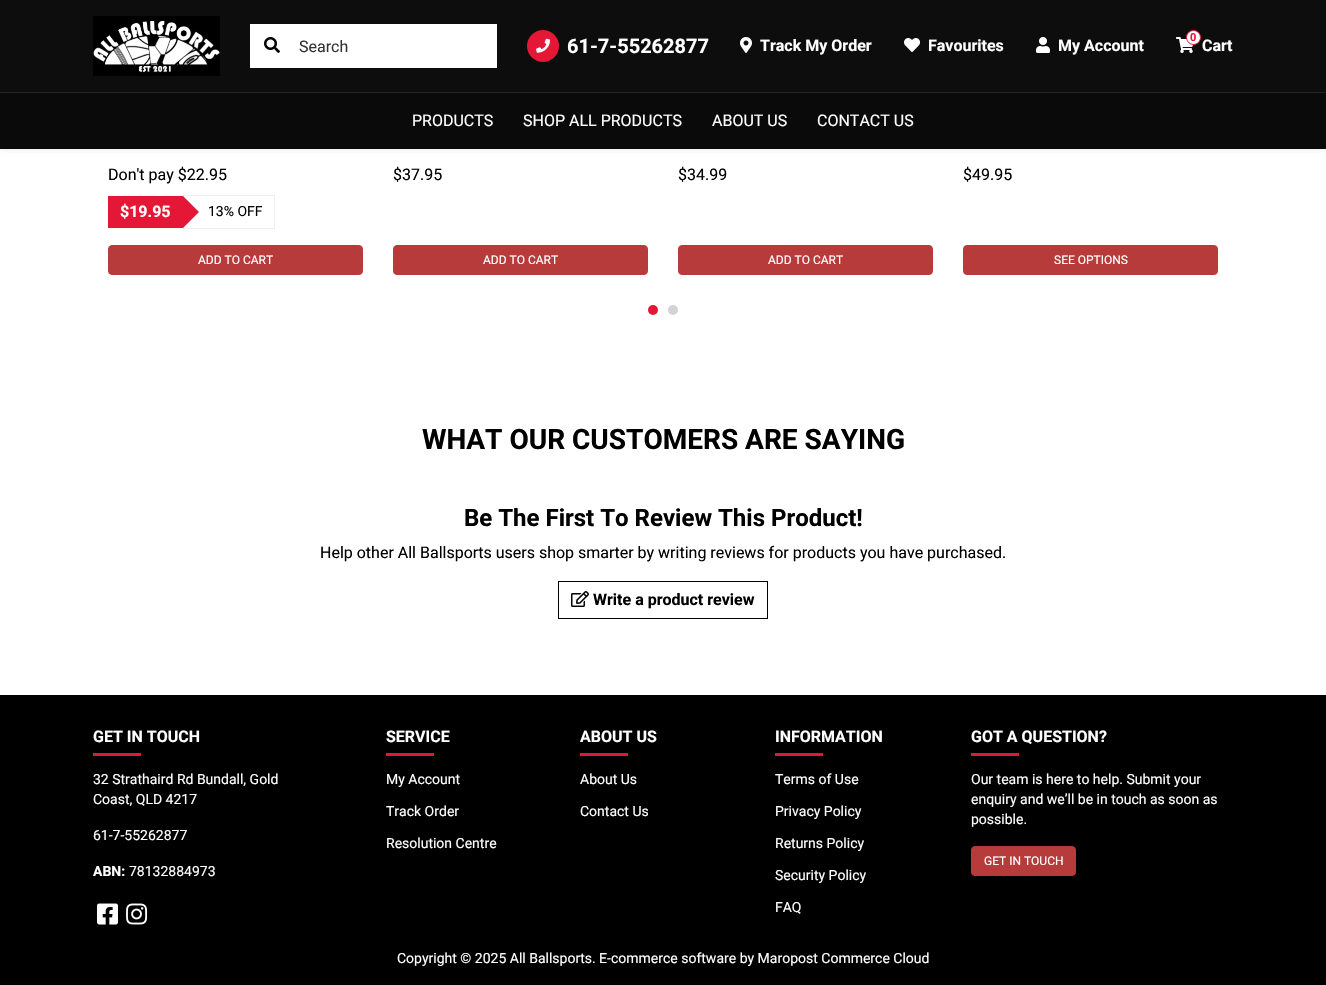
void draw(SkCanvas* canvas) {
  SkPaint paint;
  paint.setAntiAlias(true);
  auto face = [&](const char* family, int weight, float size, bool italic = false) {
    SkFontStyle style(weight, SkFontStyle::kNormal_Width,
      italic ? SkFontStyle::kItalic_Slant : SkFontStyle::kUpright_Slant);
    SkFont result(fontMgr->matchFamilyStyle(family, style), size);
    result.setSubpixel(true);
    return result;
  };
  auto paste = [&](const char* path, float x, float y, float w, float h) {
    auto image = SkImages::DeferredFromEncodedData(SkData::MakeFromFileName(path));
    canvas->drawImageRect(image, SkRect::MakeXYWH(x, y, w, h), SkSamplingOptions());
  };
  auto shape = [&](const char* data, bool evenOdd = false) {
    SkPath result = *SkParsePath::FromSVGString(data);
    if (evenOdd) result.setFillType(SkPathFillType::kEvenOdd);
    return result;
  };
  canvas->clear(0xffffffff);
  paint.setColor(0x0d000000);
  paint.setMaskFilter(SkMaskFilter::MakeBlur(kNormal_SkBlurStyle, 2));
  canvas->drawRect(SkRect::MakeXYWH(0, 94, 1326, 57), paint);
  paint.setMaskFilter(nullptr);
  paint.setColor(0xff0d0d0d);
  canvas->drawRect(SkRect::MakeXYWH(0, 0, 1326, 92), paint);
  paste("img/1.png", 93, 16, 127, 60);
  paint.setColor(0xffffffff);
  canvas->drawRect(SkRect::MakeXYWH(250.5f, 24.5f, 246, 43), paint);
  paint.setStroke(true);
  paint.setStrokeWidth(1);
  canvas->drawRect(SkRect::MakeXYWH(250.5f, 24.5f, 246, 43), paint);
  paste("img/2.png", 264, 37, 16, 16);
  paint.setStroke(false);
  paint.setColor(0xffe41736);
  canvas->drawCircle(543, 46, 16, paint);
  paste("img/3.png", 536, 38, 14, 15);
  paste("img/4.png", 740, 37, 12, 16);
  paste("img/5.png", 904, 38, 16, 14);
  paste("img/6.png", 1036, 37, 14, 16);
  paste("img/7.png", 1176, 37, 17, 16);
  paint.setColor(0xffffffff);
  canvas->drawCircle(1193.5f, 37.5f, 7, paint);
  paint.setStroke(true);
  paint.setColor(0xffe41736);
  canvas->drawCircle(1193.5f, 37.5f, 7, paint);
  paint.setStroke(false);
  {
    const struct { float x, y, w, h; SkColor color; } items[] = {
      {0, 93, 1326, 56, 0xff0a0a0a},
      {0, 92, 1326, 1, 0xff232323},
      {108, 196, 75, 32, 0xffe41736},
    };
    for (auto [x, y, w, h, color] : items) {
      paint.setColor(color);
      canvas->drawRect(SkRect::MakeXYWH(x, y, w, h), paint);
    }
  }
  paint.setStroke(true);
  paint.setColor(0xffeeeeee);
  canvas->drawRect(SkRect::MakeXYWH(183.5f, 195.5f, 91, 33), paint);
  paint.setStroke(false);
  paint.setColor(0xffe41736);
  canvas->drawPath(shape("M183 228V196L199 212Z"), paint);
  paint.setColor(0xffb83b3b);
  canvas->drawRoundRect(SkRect::MakeXYWH(108.5f, 245.5f, 254, 29), 3.5f, 3.5f, paint);
  paint.setStroke(true);
  canvas->drawRoundRect(SkRect::MakeXYWH(108.5f, 245.5f, 254, 29), 3.5f, 3.5f, paint);
  paint.setStroke(false);
  canvas->drawRoundRect(SkRect::MakeXYWH(393.5f, 245.5f, 254, 29), 3.5f, 3.5f, paint);
  paint.setStroke(true);
  canvas->drawRoundRect(SkRect::MakeXYWH(393.5f, 245.5f, 254, 29), 3.5f, 3.5f, paint);
  paint.setStroke(false);
  canvas->drawRoundRect(SkRect::MakeXYWH(678.5f, 245.5f, 254, 29), 3.5f, 3.5f, paint);
  paint.setStroke(true);
  canvas->drawRoundRect(SkRect::MakeXYWH(678.5f, 245.5f, 254, 29), 3.5f, 3.5f, paint);
  paint.setStroke(false);
  canvas->drawRoundRect(SkRect::MakeXYWH(963.5f, 245.5f, 254, 29), 3.5f, 3.5f, paint);
  paint.setStroke(true);
  canvas->drawRoundRect(SkRect::MakeXYWH(963.5f, 245.5f, 254, 29), 3.5f, 3.5f, paint);
  paint.setStroke(false);
  paint.setColor(0xffe41736);
  canvas->drawCircle(653, 310, 5, paint);
  paint.setColor(0xffd3d3d3);
  canvas->drawCircle(673, 310, 5, paint);
  paint.setStroke(true);
  paint.setColor(0xff000000);
  canvas->drawRect(SkRect::MakeXYWH(558.5f, 581.5f, 209, 37), paint);
  paste("img/8.png", 571, 591, 18, 16);
  paint.setStroke(false);
  canvas->drawRect(SkRect::MakeXYWH(0, 695, 1326, 290), paint);
  paint.setColor(0xffe41736);
  canvas->drawRect(SkRect::MakeXYWH(93, 753, 48, 3), paint);
  paste("img/9.png", 97, 903, 21, 22);
  paste("img/10.png", 126, 903, 22, 22);
  {
    const struct { float x, y, w, h; SkColor color; } items[] = {
      {386, 753, 48, 3, 0xffe41736},
      {580, 753, 48, 3, 0xffe41736},
      {775, 753, 48, 3, 0xffe41736},
      {971, 753, 48, 3, 0xffe41736},
    };
    for (auto [x, y, w, h, color] : items) {
      paint.setColor(color);
      canvas->drawRect(SkRect::MakeXYWH(x, y, w, h), paint);
    }
  }
  paint.setColor(0xffb83b3b);
  canvas->drawRoundRect(SkRect::MakeXYWH(971.5f, 846.5f, 104, 29), 3.5f, 3.5f, paint);
  paint.setStroke(true);
  canvas->drawRoundRect(SkRect::MakeXYWH(971.5f, 846.5f, 104, 29), 3.5f, 3.5f, paint);
  auto f0 = face("Roboto", 400, 16);
  paint.setStroke(false);
  paint.setColor(0xff333333);
  canvas->drawString("Search", 299, 52, f0, paint);
  auto f1 = face("Roboto", 700, 20);
  paint.setColor(0xffffffff);
  canvas->drawString("61-7-55262877", 567, 53, f1, paint);
  auto f2 = face("Roboto", 700, 16);
  {
    const struct { const char* s; float x, y; } items[] = {
      {"Track My Order", 760, 51},
      {"Favourites", 928, 51},
      {"My Account", 1058, 51},
    };
    for (auto [s, x, y] : items) {
      canvas->drawString(s, x, y, f2, paint);
    }
  }
  auto f3 = face("Roboto", 700, 11);
  paint.setColor(0xffe41736);
  canvas->drawString("0", 1190, 41, f3, paint);
  paint.setColor(0xffffffff);
  canvas->drawString("Cart", 1202, 51, f2, paint);
  {
    const struct { const char* s; float x, y; } items[] = {
      {"PRODUCTS", 412, 126},
      {"SHOP ALL PRODUCTS", 523, 126},
      {"ABOUT US", 712, 126},
      {"CONTACT US", 817, 126},
    };
    for (auto [s, x, y] : items) {
      canvas->drawString(s, x, y, f0, paint);
    }
  }
  paint.setColor(0xff000000);
  canvas->drawString("Don't pay $22.95", 108, 180, f0, paint);
  paint.setColor(0xffffffff);
  canvas->drawString("$19.95", 120, 217, f2, paint);
  auto f4 = face("Roboto", 400, 14);
  paint.setColor(0xff000000);
  canvas->drawString("13% OFF", 208, 216, f4, paint);
  auto f5 = face("Roboto", 400, 12);
  paint.setColor(0xffffffff);
  canvas->drawString("ADD TO CART", 198, 264, f5, paint);
  paint.setColor(0xff000000);
  canvas->drawString("$37.95", 393, 180, f0, paint);
  paint.setColor(0xffffffff);
  canvas->drawString("ADD TO CART", 483, 264, f5, paint);
  paint.setColor(0xff000000);
  canvas->drawString("$34.99", 678, 180, f0, paint);
  paint.setColor(0xffffffff);
  canvas->drawString("ADD TO CART", 768, 264, f5, paint);
  paint.setColor(0xff000000);
  canvas->drawString("$49.95", 963, 180, f0, paint);
  paint.setColor(0xffffffff);
  canvas->drawString("SEE OPTIONS", 1054, 264, f5, paint);
  auto f6 = face("Roboto", 700, 28);
  paint.setColor(0xff000000);
  canvas->drawString("WHAT OUR CUSTOMERS ARE SAYING", 422, 449, f6, paint);
  auto f7 = face("Roboto", 700, 24);
  canvas->drawString("Be The First To Review This Product!", 464, 526, f7, paint);
  canvas->drawString("Help other All Ballsports users shop smarter by writing reviews for products you have purchased.", 320, 558, f0, paint);
  canvas->drawString("Write a product review", 593, 605, f2, paint);
  paint.setColor(0xffffffff);
  canvas->drawString("GET IN TOUCH", 93, 742, f2, paint);
  {
    const struct { const char* s; float x, y; } items[] = {
      {"32 Strathaird Rd Bundall, Gold", 93, 784},
      {"Coast, QLD 4217", 93, 804},
      {"61-7-55262877", 93, 840},
    };
    for (auto [s, x, y] : items) {
      canvas->drawString(s, x, y, f4, paint);
    }
  }
  auto f8 = face("Roboto", 700, 14);
  canvas->drawString("ABN:", 93, 876, f8, paint);
  canvas->drawString("78132884973", 129, 876, f4, paint);
  canvas->drawString("SERVICE", 386, 742, f2, paint);
  {
    const struct { const char* s; float x, y; } items[] = {
      {"My Account", 386, 784},
      {"Track Order", 386, 816},
      {"Resolution Centre", 386, 848},
    };
    for (auto [s, x, y] : items) {
      canvas->drawString(s, x, y, f4, paint);
    }
  }
  canvas->drawString("ABOUT US", 580, 742, f2, paint);
  canvas->drawString("About Us", 580, 784, f4, paint);
  canvas->drawString("Contact Us", 580, 816, f4, paint);
  canvas->drawString("INFORMATION", 775, 742, f2, paint);
  {
    const struct { const char* s; float x, y; } items[] = {
      {"Terms of Use", 775, 784},
      {"Privacy Policy", 775, 816},
      {"Returns Policy", 775, 848},
      {"Security Policy", 775, 880},
      {"FAQ", 775, 912},
    };
    for (auto [s, x, y] : items) {
      canvas->drawString(s, x, y, f4, paint);
    }
  }
  canvas->drawString("GOT A QUESTION?", 971, 742, f2, paint);
  {
    const struct { const char* s; float x, y; } items[] = {
      {"Our team is here to help. Submit your", 971, 784},
      {"enquiry and we’ll be in touch as soon as", 971, 804},
      {"possible.", 971, 824},
    };
    for (auto [s, x, y] : items) {
      canvas->drawString(s, x, y, f4, paint);
    }
  }
  canvas->drawString("GET IN TOUCH", 984, 865, f5, paint);
  canvas->drawString("Copyright © 2025 All Ballsports. E-commerce software by Maropost Commerce Cloud", 397, 963, f4, paint);
}
